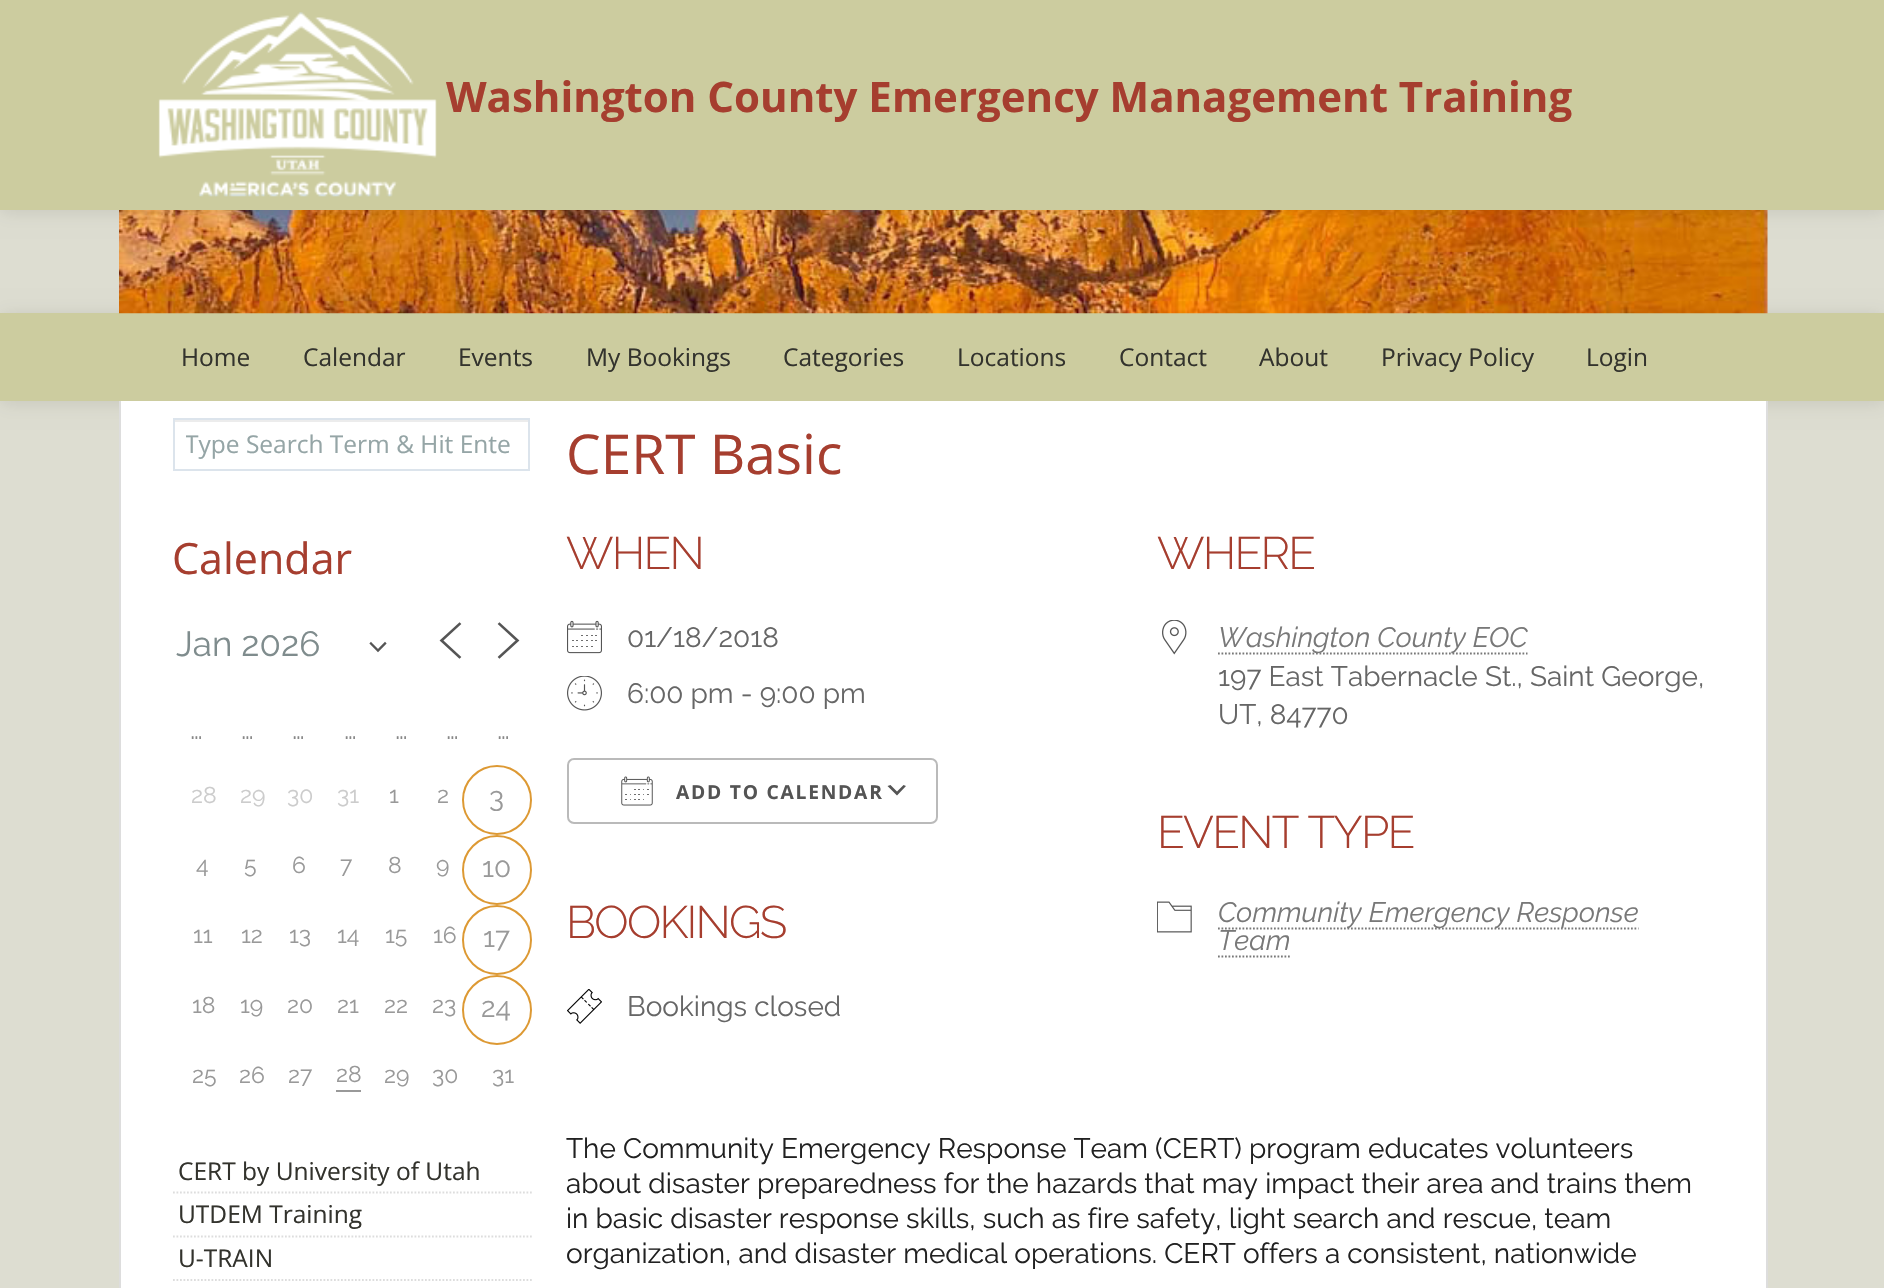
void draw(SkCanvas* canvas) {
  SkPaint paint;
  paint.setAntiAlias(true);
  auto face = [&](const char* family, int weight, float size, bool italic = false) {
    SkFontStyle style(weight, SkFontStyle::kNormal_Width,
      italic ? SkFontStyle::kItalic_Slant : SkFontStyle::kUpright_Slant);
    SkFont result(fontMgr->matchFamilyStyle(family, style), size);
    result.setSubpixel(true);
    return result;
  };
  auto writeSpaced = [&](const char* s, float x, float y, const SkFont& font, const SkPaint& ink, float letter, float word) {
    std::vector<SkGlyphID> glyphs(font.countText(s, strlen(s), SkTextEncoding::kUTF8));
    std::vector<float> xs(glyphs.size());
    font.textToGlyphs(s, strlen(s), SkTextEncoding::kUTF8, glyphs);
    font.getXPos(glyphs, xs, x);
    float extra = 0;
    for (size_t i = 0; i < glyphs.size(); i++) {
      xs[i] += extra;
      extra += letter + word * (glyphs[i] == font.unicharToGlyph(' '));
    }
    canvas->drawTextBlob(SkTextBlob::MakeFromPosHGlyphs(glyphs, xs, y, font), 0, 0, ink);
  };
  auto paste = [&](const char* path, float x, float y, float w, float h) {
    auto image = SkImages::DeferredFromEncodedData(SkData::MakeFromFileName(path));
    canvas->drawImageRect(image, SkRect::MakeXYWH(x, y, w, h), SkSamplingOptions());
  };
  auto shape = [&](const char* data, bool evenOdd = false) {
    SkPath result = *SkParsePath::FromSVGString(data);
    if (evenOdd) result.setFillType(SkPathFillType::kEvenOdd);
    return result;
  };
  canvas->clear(0xffddddd1);
  paint.setColor(0x1a000000);
  paint.setMaskFilter(SkMaskFilter::MakeBlur(kNormal_SkBlurStyle, 9));
  canvas->drawRect(SkRect::MakeXYWH(0, 315, 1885, 88), paint);
  paint.setMaskFilter(nullptr);
  paint.setColor(0xffcccc9f);
  canvas->drawRect(SkRect::MakeXYWH(0, 313, 1884, 88), paint);
  paste("img/2.png", 119, 210, 1649, 104);
  paint.setColor(0x1a000000);
  paint.setMaskFilter(SkMaskFilter::MakeBlur(kNormal_SkBlurStyle, 9));
  canvas->drawRect(SkRect::MakeXYWH(0, 2, 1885, 210), paint);
  paint.setMaskFilter(nullptr);
  paint.setColor(0xffcccc9f);
  canvas->drawRect(SkRect::MakeXYWH(0, 0, 1884, 210), paint);
  paste("img/1.png", 158, 12, 279, 185);
  {
    const struct { float x, y, w, h; SkColor color; } items[] = {
      {121, 401, 1645, 887, 0xffffffff},
      {1766, 401, 2, 887, 0xffdddddd},
      {119, 401, 2, 887, 0xffdddddd},
      {175, 420, 354, 2, 0xffececec},
    };
    for (auto [x, y, w, h, color] : items) {
      paint.setColor(color);
      canvas->drawRect(SkRect::MakeXYWH(x, y, w, h), paint);
    }
  }
  paint.setStroke(true);
  paint.setStrokeWidth(2);
  paint.setColor(0xffdce4ec);
  canvas->drawRect(SkRect::MakeXYWH(174, 419, 355, 51), paint);
  paint.setStrokeWidth(2.3f);
  paint.setStrokeCap(SkPaint::kSquare_Cap);
  paint.setColor(0xff555555);
  canvas->drawPath(shape("M371 643.5L378 650.5L385 643.5"), paint);
  paint.setStrokeWidth(2.6f);
  canvas->drawPath(shape("M459.5 657L441.5 640.5L459.5 624"), paint);
  canvas->drawPath(shape("M499.5 657L517.5 640.5L499.5 624"), paint);
  paint.setStrokeWidth(2);
  paint.setStrokeCap(SkPaint::kButt_Cap);
  paint.setColor(0xffdd9933);
  canvas->drawCircle(497, 800, 34, paint);
  canvas->drawCircle(497, 870, 34, paint);
  canvas->drawCircle(497, 940, 34, paint);
  canvas->drawCircle(497, 1010, 34, paint);
  paint.setStroke(false);
  paint.setColor(0xff999999);
  canvas->drawRect(SkRect::MakeXYWH(336, 1090, 25, 2), paint);
  paint.setStroke(true);
  paint.setStrokeWidth(1.8f);
  paint.setColor(0xffdddddd);
  paint.setPathEffect(SkDashPathEffect::Make({{1.75f, 1.75f}}, 0));
  canvas->drawPath(shape("M173 1192.5H532"), paint);
  paint.setPathEffect(nullptr);
  paint.setPathEffect(SkDashPathEffect::Make({{1.75f, 1.75f}}, 0));
  canvas->drawPath(shape("M173 1236.5H532"), paint);
  paint.setPathEffect(nullptr);
  paint.setPathEffect(SkDashPathEffect::Make({{1.75f, 1.75f}}, 0));
  canvas->drawPath(shape("M173 1280H532"), paint);
  paint.setPathEffect(nullptr);
  paste("img/3.png", 567, 620, 35, 34);
  paste("img/4.png", 567, 676, 35, 35);
  paint.setStroke(false);
  paint.setColor(0xff555555);
  canvas->drawPath(shape("M890.5 785L897 791.5L903.5 785L906 786L897 795.5L887.5 786Z"), paint);
  paint.setStroke(true);
  paint.setStrokeWidth(2);
  paint.setColor(0xffbababa);
  canvas->drawRoundRect(SkRect::MakeXYWH(568, 759, 369, 64), 6, 6, paint);
  paste("img/5.png", 621, 776, 32, 30);
  paste("img/6.png", 567, 989, 35, 35);
  paste("img/7.png", 1162, 620, 25, 35);
  paint.setStrokeWidth(1.8f);
  paint.setColor(0xff787878);
  paint.setPathEffect(SkDashPathEffect::Make({{1.75f, 1.75f}}, 0));
  canvas->drawPath(shape("M1218 653.5H1527.5"), paint);
  paint.setPathEffect(nullptr);
  paste("img/8.png", 1157, 901, 35, 32);
  paint.setPathEffect(SkDashPathEffect::Make({{1.75f, 1.75f}}, 0));
  canvas->drawPath(shape("M1218 928.5H1638.5"), paint);
  paint.setPathEffect(nullptr);
  paint.setPathEffect(SkDashPathEffect::Make({{1.75f, 1.75f}}, 0));
  canvas->drawPath(shape("M1218 956.5H1290.5"), paint);
  paint.setPathEffect(nullptr);
  auto f0 = face("Open Sans", 700, 42);
  paint.setStroke(false);
  paint.setColor(0xffa63e2f);
  canvas->drawString("Washington County Emergency Management Training", 446, 112, f0, paint);
  auto f1 = face("Open Sans", 400, 24.5f);
  paint.setColor(0xff33332d);
  {
    const struct { const char* s; float x, y; } items[] = {
      {"Home", 181, 366},
      {"Calendar", 303, 366},
      {"Events", 458, 366},
      {"My Bookings", 586, 366},
      {"Categories", 783, 366},
      {"Locations", 957, 366},
      {"Contact", 1119, 366},
      {"About", 1259, 366},
      {"Privacy Policy", 1381, 366},
      {"Login", 1586, 366},
    };
    for (auto [s, x, y] : items) {
      canvas->drawString(s, x, y, f1, paint);
    }
  }
  canvas->save();
  canvas->clipRect(SkRect::MakeXYWH(186, 427, 325, 33));
  paint.setColor(0xff95a5a6);
  canvas->drawString("Type Search Term & Hit Ente", 185, 453, f1, paint);
  canvas->restore();
  auto f2 = face("Open Sans", 400, 43);
  paint.setColor(0xffa63e2f);
  canvas->drawString("Calendar", 172, 574, f2, paint);
  auto f3 = face("Raleway", 400, 35);
  paint.setColor(0xff7f8c8d);
  canvas->drawString("Jan 2026", 176, 656, f3, paint);
  auto f4 = face("Raleway", 400, 28);
  paint.setColor(0xff888888);
  {
    const struct { const char* s; float x, y; } items[] = {
      {"…", 190, 739},
      {"…", 241, 739},
      {"…", 292, 739},
      {"…", 344, 739},
      {"…", 395, 739},
      {"…", 446, 739},
      {"…", 497, 739},
    };
    for (auto [s, x, y] : items) {
      canvas->drawString(s, x, y, f4, paint);
    }
  }
  auto f5 = face("Raleway", 400, 23);
  paint.setColor(0xffcccccc);
  {
    const struct { const char* s; float x, y; } items[] = {
      {"28", 191, 803},
      {"29", 240, 803},
      {"30", 287, 803},
      {"31", 337, 803},
    };
    for (auto [s, x, y] : items) {
      canvas->drawString(s, x, y, f5, paint);
    }
  }
  paint.setColor(0xff999999);
  canvas->drawString("1", 389, 803, f5, paint);
  canvas->drawString("2", 437, 803, f5, paint);
  canvas->drawString("3", 489, 807, f4, paint);
  {
    const struct { const char* s; float x, y; } items[] = {
      {"4", 196, 873},
      {"5", 244, 873},
      {"6", 292, 873},
      {"7", 340, 873},
      {"8", 388, 873},
      {"9", 436, 873},
    };
    for (auto [s, x, y] : items) {
      canvas->drawString(s, x, y, f5, paint);
    }
  }
  canvas->drawString("10", 482, 877, f4, paint);
  {
    const struct { const char* s; float x, y; } items[] = {
      {"11", 193, 943},
      {"12", 241, 943},
      {"13", 289, 943},
      {"14", 337, 943},
      {"15", 385, 943},
      {"16", 433, 943},
    };
    for (auto [s, x, y] : items) {
      canvas->drawString(s, x, y, f5, paint);
    }
  }
  canvas->drawString("17", 483, 947, f4, paint);
  {
    const struct { const char* s; float x, y; } items[] = {
      {"18", 192, 1013},
      {"19", 240, 1013},
      {"20", 287, 1013},
      {"21", 337, 1013},
      {"22", 384, 1013},
      {"23", 432, 1013},
    };
    for (auto [s, x, y] : items) {
      canvas->drawString(s, x, y, f5, paint);
    }
  }
  canvas->drawString("24", 481, 1017, f4, paint);
  {
    const struct { const char* s; float x, y; } items[] = {
      {"25", 192, 1083},
      {"26", 239, 1083},
      {"27", 288, 1083},
      {"28", 336, 1082},
      {"29", 384, 1083},
      {"30", 432, 1083},
      {"31", 492, 1083},
    };
    for (auto [s, x, y] : items) {
      canvas->drawString(s, x, y, f5, paint);
    }
  }
  paint.setColor(0xff33332d);
  {
    const struct { const char* s; float x, y; } items[] = {
      {"CERT by University of Utah", 178, 1180},
      {"UTDEM Training", 178, 1223},
      {"U-TRAIN", 178, 1267},
    };
    for (auto [s, x, y] : items) {
      canvas->drawString(s, x, y, f1, paint);
    }
  }
  auto f6 = face("Open Sans", 400, 55);
  paint.setColor(0xffa63e2f);
  canvas->drawString("CERT Basic", 566, 474, f6, paint);
  auto f7 = face("Raleway", 300, 45.5f);
  writeSpaced("WHEN", 566, 569, f7, paint, -1.75f, 0);
  paint.setColor(0xff666666);
  canvas->drawString("01/18/2018", 627, 647, f4, paint);
  canvas->drawString("6:00 pm - 9:00 pm", 627, 703, f4, paint);
  auto f8 = face("Open Sans", 700, 19.25f);
  paint.setColor(0xff545454);
  writeSpaced("ADD TO CALENDAR", 676, 799, f8, paint, 1.75f, 0);
  paint.setColor(0xffa63e2f);
  writeSpaced("BOOKINGS", 566, 938, f7, paint, -1.75f, 0);
  paint.setColor(0xff666666);
  canvas->drawString("Bookings closed", 627, 1016, f4, paint);
  paint.setColor(0xffa63e2f);
  writeSpaced("WHERE", 1157, 569, f7, paint, -1.75f, 0);
  auto f9 = face("Raleway", 400, 28, true);
  paint.setColor(0xff787878);
  canvas->drawString("Washington County EOC", 1218, 647, f9, paint);
  paint.setColor(0xff666666);
  canvas->drawString("197 East Tabernacle St., Saint George,", 1218, 686, f4, paint);
  canvas->drawString("UT, 84770", 1218, 724, f4, paint);
  paint.setColor(0xffa63e2f);
  writeSpaced("EVENT TYPE", 1157, 848, f7, paint, -1.75f, 0);
  paint.setColor(0xff787878);
  canvas->drawString("Community Emergency Response", 1218, 922, f9, paint);
  canvas->drawString("Team", 1218, 950, f9, paint);
  paint.setColor(0xff212121);
  {
    const struct { const char* s; float x, y; } items[] = {
      {"The Community Emergency Response Team (CERT) program educates volunteers", 566, 1158},
      {"about disaster preparedness for the hazards that may impact their area and trains them", 566, 1193},
      {"in basic disaster response skills, such as fire safety, light search and rescue, team", 566, 1228},
      {"organization, and disaster medical operations. CERT offers a consistent, nationwide", 566, 1263},
    };
    for (auto [s, x, y] : items) {
      canvas->drawString(s, x, y, f4, paint);
    }
  }
}
